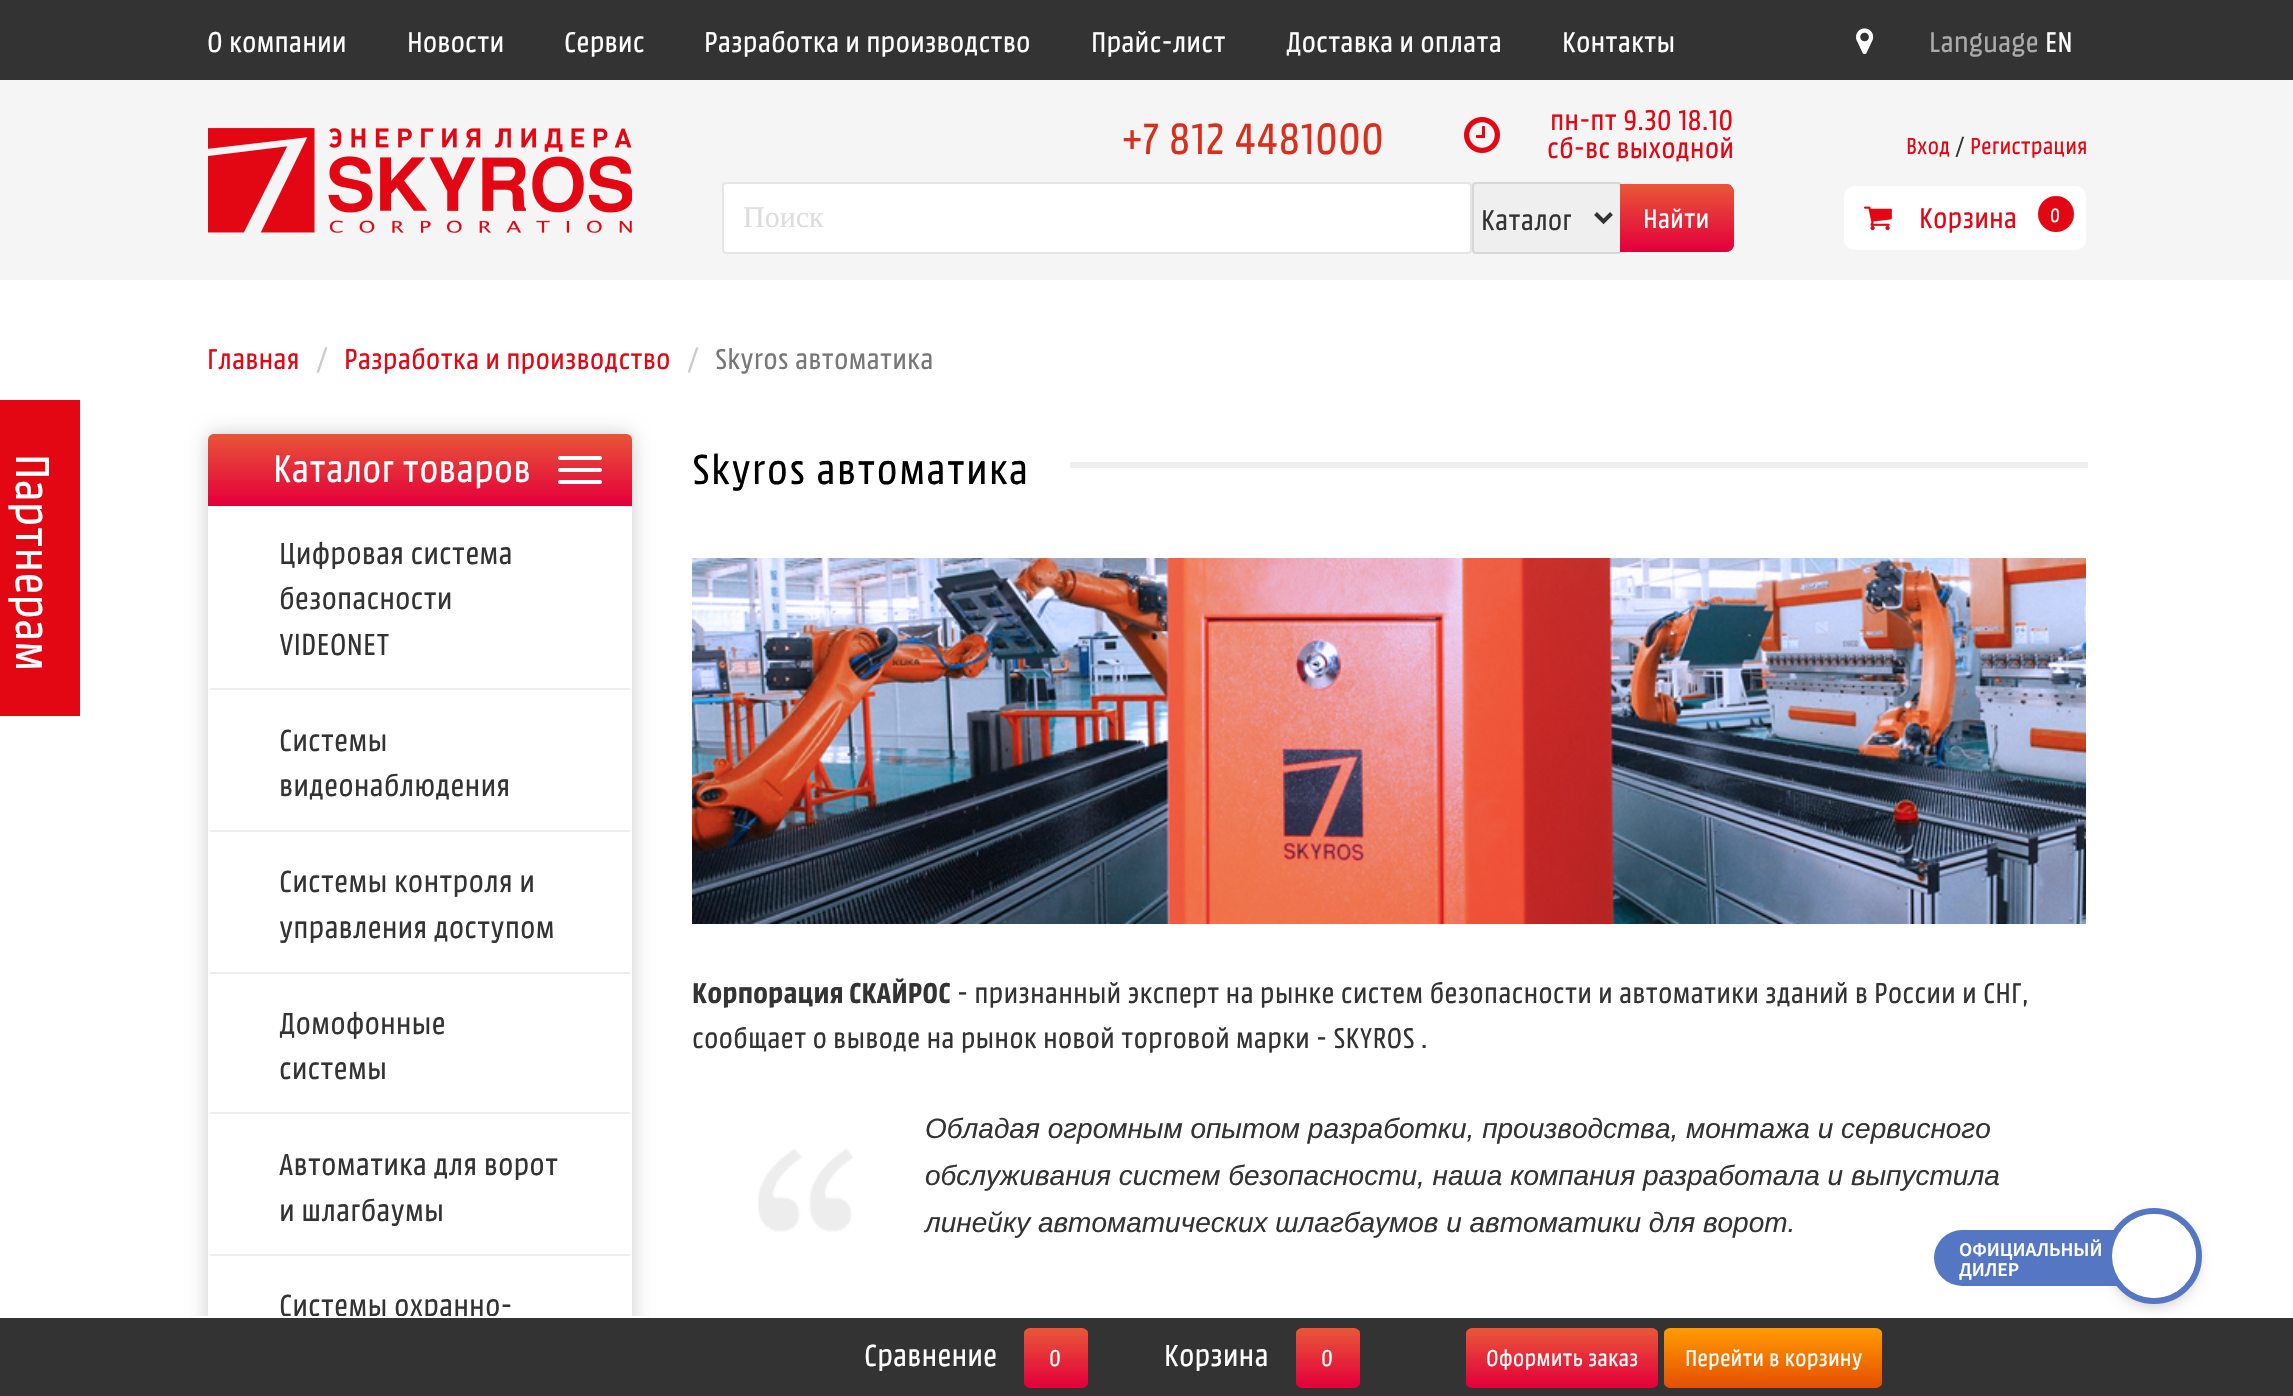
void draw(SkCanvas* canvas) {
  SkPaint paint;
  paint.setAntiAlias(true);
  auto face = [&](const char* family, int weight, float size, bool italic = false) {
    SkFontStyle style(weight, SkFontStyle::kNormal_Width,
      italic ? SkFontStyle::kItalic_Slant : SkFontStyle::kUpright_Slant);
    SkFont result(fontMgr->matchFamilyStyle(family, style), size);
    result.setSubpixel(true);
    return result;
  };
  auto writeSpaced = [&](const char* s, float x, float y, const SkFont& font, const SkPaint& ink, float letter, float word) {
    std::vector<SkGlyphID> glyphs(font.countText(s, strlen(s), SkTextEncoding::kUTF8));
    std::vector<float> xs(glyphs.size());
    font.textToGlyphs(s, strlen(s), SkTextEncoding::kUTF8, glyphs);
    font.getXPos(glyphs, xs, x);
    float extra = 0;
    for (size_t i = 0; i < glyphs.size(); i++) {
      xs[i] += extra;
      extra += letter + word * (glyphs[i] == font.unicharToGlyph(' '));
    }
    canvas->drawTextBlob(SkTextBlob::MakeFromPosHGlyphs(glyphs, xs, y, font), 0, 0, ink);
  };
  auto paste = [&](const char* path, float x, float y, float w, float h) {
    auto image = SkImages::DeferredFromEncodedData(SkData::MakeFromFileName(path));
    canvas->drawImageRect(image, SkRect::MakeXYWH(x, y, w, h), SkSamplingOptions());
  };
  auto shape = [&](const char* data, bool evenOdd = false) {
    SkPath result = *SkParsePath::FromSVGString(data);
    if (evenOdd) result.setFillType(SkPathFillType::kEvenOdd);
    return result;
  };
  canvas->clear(0xffffffff);
  paint.setColor(0xfff5f5f5);
  canvas->drawRect(SkRect::MakeXYWH(0, 80, 2293, 200), paint);
  paint.setColor(0xff333333);
  canvas->drawRect(SkRect::MakeXYWH(0, 0, 2293, 80), paint);
  paste("img/1.png", 1856, 28, 18, 27);
  paste("img/2.png", 208, 128, 424, 105);
  paste("img/3.png", 1464, 117, 36, 36);
  paint.setColor(0xffffffff);
  canvas->drawRoundRect(SkRect::MakeXYWH(722, 182, 750, 72), 4, 4, paint);
  paint.setStroke(true);
  paint.setStrokeWidth(2);
  paint.setColor(0x1a000000);
  canvas->drawRoundRect(SkRect::MakeXYWH(723, 183, 748, 70), 3, 3, paint);
  paint.setStroke(false);
  paint.setColor(0xffefefef);
  canvas->drawRoundRect(SkRect::MakeXYWH(1473, 183, 148, 70), 3, 3, paint);
  paint.setStroke(true);
  paint.setColor(0xffd7d7d7);
  canvas->drawRoundRect(SkRect::MakeXYWH(1473, 183, 148, 70), 3, 3, paint);
  paint.setStrokeWidth(4);
  paint.setColor(0xff333333);
  canvas->drawPath(shape("M1595.5 213.5L1603.5 221.5L1611.5 213.5"), paint);
  canvas->save();
  canvas->clipPath(shape("M1620 184H1726C1730.5 184 1734 187.5 1734 192V244C1734 248.5 1730.5 252 1726 252H1620Z"), true);
  paint.setStroke(false);
  {
    const SkColor colors[] = {0xffe85538, 0xffe4003a};
    const float stops[] = {0, 1};
    const SkPoint ends[] = {{1677, 122}, {1677, 186}};
    paint.setShader(SkGradientShader::MakeLinear(ends, colors, stops, 2, SkTileMode::kClamp));
    paint.setAlpha(255);
  }
  canvas->drawRect(SkRect::MakeXYWH(1726, 184, 8, 2), paint);
  {
    const SkColor colors[] = {0xffe85538, 0xffe4003a};
    const float stops[] = {0, 1};
    const SkPoint ends[] = {{1677, 186}, {1677, 250}};
    paint.setShader(SkGradientShader::MakeLinear(ends, colors, stops, 2, SkTileMode::kClamp));
    paint.setAlpha(255);
  }
  canvas->drawRect(SkRect::MakeXYWH(1620, 186, 114, 64), paint);
  {
    const SkColor colors[] = {0xffe85538, 0xffe4003a};
    const float stops[] = {0, 1};
    const SkPoint ends[] = {{1677, 250}, {1677, 314}};
    paint.setShader(SkGradientShader::MakeLinear(ends, colors, stops, 2, SkTileMode::kClamp));
    paint.setAlpha(255);
  }
  canvas->drawRect(SkRect::MakeXYWH(1726, 250, 8, 2), paint);
  canvas->restore();
  paint.setShader(nullptr);
  paint.setColor(0xffe85538);
  canvas->drawPath(shape("M1620 184V186H1726C1730 186 1734 189 1734 192C1734 188 1730 184 1726 184Z"), paint);
  paint.setColor(0xffe4003a);
  canvas->drawPath(shape("M1726 252C1730 252 1734 248 1734 244C1734 247 1730 250 1726 250H1620V252Z"), paint);
  paint.setColor(0xffffffff);
  canvas->drawRoundRect(SkRect::MakeXYWH(1844, 186, 242, 64), 10, 10, paint);
  paste("img/4.png", 1864, 206, 28, 25);
  paint.setColor(0xffe30613);
  canvas->drawCircle(2056, 214, 18, paint);
  paint.setColor(0xffcccccc);
  paint.setMaskFilter(SkMaskFilter::MakeBlur(kNormal_SkBlurStyle, 10));
  canvas->drawRoundRect(SkRect::MakeXYWH(208, 434, 424, 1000), 8, 8, paint);
  paint.setMaskFilter(nullptr);
  paint.setColor(0xffffffff);
  canvas->drawRoundRect(SkRect::MakeXYWH(208, 434, 424, 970), 8, 8, paint);
  {
    const SkColor colors[] = {0xffe85538, 0xffe4003a};
    const float stops[] = {0, 1};
    const SkPoint ends[] = {{420, 434}, {420, 504}};
    paint.setShader(SkGradientShader::MakeLinear(ends, colors, stops, 2, SkTileMode::kClamp));
    paint.setAlpha(255);
  }
  canvas->drawPath(shape("M214 434H626C629.5 434 632 436.5 632 440V504H208V440C208 436.5 210.5 434 214 434Z"), paint);
  paint.setShader(nullptr);
  paint.setColor(0xffe4003a);
  canvas->drawRect(SkRect::MakeXYWH(208, 504, 424, 2), paint);
  paint.setColor(0xffffffff);
  canvas->drawRoundRect(SkRect::MakeXYWH(558, 456, 44, 4), 2, 2, paint);
  canvas->drawRoundRect(SkRect::MakeXYWH(558, 468, 44, 4), 2, 2, paint);
  canvas->drawRoundRect(SkRect::MakeXYWH(558, 480, 44, 4), 2, 2, paint);
  {
    const struct { float x, y, w, h; SkColor color; } items[] = {
      {210, 688, 420, 2, 0xffeeeeee},
      {210, 830, 420, 2, 0xffeeeeee},
      {210, 972, 420, 2, 0xffeeeeee},
      {210, 1112, 420, 2, 0xffeeeeee},
      {210, 1254, 420, 2, 0xffeeeeee},
      {1070, 462, 1018, 6, 0xffeeeeee},
    };
    for (auto [x, y, w, h, color] : items) {
      paint.setColor(color);
      canvas->drawRect(SkRect::MakeXYWH(x, y, w, h), paint);
    }
  }
  paste("img/5.png", 692, 558, 1394, 366);
  paste("img/6.png", 758, 1148, 95, 84);
  paint.setColor(0xffe30613);
  canvas->drawRect(SkRect::MakeXYWH(0, 400, 80, 316), paint);
  paint.setColor(0xff333333);
  canvas->drawRect(SkRect::MakeXYWH(0, 1318, 2293, 78), paint);
  canvas->save();
  canvas->clipPath(shape("M1030 1328H1082C1085.5 1328 1088 1330.5 1088 1334V1382C1088 1385.5 1085.5 1388 1082 1388H1030C1026.5 1388 1024 1385.5 1024 1382V1334C1024 1330.5 1026.5 1328 1030 1328Z"), true);
  {
    const SkColor colors[] = {0xffe85538, 0xffe4003a};
    const float stops[] = {0, 1};
    const SkPoint ends[] = {{1056, 1330}, {1056, 1386}};
    paint.setShader(SkGradientShader::MakeLinear(ends, colors, stops, 2, SkTileMode::kClamp));
    paint.setAlpha(255);
  }
  canvas->drawRect(SkRect::MakeXYWH(1024, 1330, 64, 56), paint);
  canvas->restore();
  paint.setShader(nullptr);
  paint.setColor(0xffe85538);
  canvas->drawPath(shape("M1030 1328C1027 1328 1024 1331 1024 1334C1024 1332 1027 1330 1030 1330H1082C1085 1330 1088 1332 1088 1334C1088 1331 1085 1328 1082 1328Z"), paint);
  paint.setColor(0xffe4003a);
  canvas->drawPath(shape("M1082 1388C1085 1388 1088 1385 1088 1382C1088 1384 1085 1386 1082 1386H1030C1027 1386 1024 1384 1024 1382C1024 1385 1027 1388 1030 1388Z"), paint);
  canvas->save();
  canvas->clipPath(shape("M1302 1328H1354C1357.5 1328 1360 1330.5 1360 1334V1382C1360 1385.5 1357.5 1388 1354 1388H1302C1298.5 1388 1296 1385.5 1296 1382V1334C1296 1330.5 1298.5 1328 1302 1328Z"), true);
  {
    const SkColor colors[] = {0xffe85538, 0xffe4003a};
    const float stops[] = {0, 1};
    const SkPoint ends[] = {{1328, 1330}, {1328, 1386}};
    paint.setShader(SkGradientShader::MakeLinear(ends, colors, stops, 2, SkTileMode::kClamp));
    paint.setAlpha(255);
  }
  canvas->drawRect(SkRect::MakeXYWH(1296, 1330, 64, 56), paint);
  canvas->restore();
  paint.setShader(nullptr);
  paint.setColor(0xffe85538);
  canvas->drawPath(shape("M1302 1328C1299 1328 1296 1331 1296 1334C1296 1332 1299 1330 1302 1330H1354C1357 1330 1360 1332 1360 1334C1360 1331 1357 1328 1354 1328Z"), paint);
  paint.setColor(0xffe4003a);
  canvas->drawPath(shape("M1354 1388C1357 1388 1360 1385 1360 1382C1360 1384 1357 1386 1354 1386H1302C1299 1386 1296 1384 1296 1382C1296 1385 1299 1388 1302 1388Z"), paint);
  canvas->save();
  canvas->clipPath(shape("M1472 1328H1652C1655.5 1328 1658 1330.5 1658 1334V1382C1658 1385.5 1655.5 1388 1652 1388H1472C1468.5 1388 1466 1385.5 1466 1382V1334C1466 1330.5 1468.5 1328 1472 1328Z"), true);
  {
    const SkColor colors[] = {0xffe85538, 0xffe4003a};
    const float stops[] = {0, 1};
    const SkPoint ends[] = {{1562, 1330}, {1562, 1386}};
    paint.setShader(SkGradientShader::MakeLinear(ends, colors, stops, 2, SkTileMode::kClamp));
    paint.setAlpha(255);
  }
  canvas->drawRect(SkRect::MakeXYWH(1466, 1330, 192, 56), paint);
  canvas->restore();
  paint.setShader(nullptr);
  paint.setColor(0xffe85538);
  canvas->drawPath(shape("M1472 1328C1469 1328 1466 1331 1466 1334C1466 1331 1470 1330 1472 1330H1653L1657 1332L1658 1334C1658 1331 1655 1328 1652 1328Z"), paint);
  paint.setColor(0xffe4003a);
  canvas->drawPath(shape("M1652 1388C1655 1388 1658 1385 1658 1382C1658 1385 1654 1386 1652 1386H1471L1467 1384L1466 1382C1466 1385 1469 1388 1472 1388Z"), paint);
  canvas->save();
  canvas->clipPath(shape("M1670 1328H1876C1879.5 1328 1882 1330.5 1882 1334V1382C1882 1385.5 1879.5 1388 1876 1388H1670C1666.5 1388 1664 1385.5 1664 1382V1334C1664 1330.5 1666.5 1328 1670 1328Z"), true);
  {
    const SkColor colors[] = {0xffff9900, 0xffe65100};
    const float stops[] = {0, 1};
    const SkPoint ends[] = {{1773, 1330}, {1773, 1386}};
    paint.setShader(SkGradientShader::MakeLinear(ends, colors, stops, 2, SkTileMode::kClamp));
    paint.setAlpha(255);
  }
  canvas->drawRect(SkRect::MakeXYWH(1664, 1330, 218, 56), paint);
  canvas->restore();
  paint.setShader(nullptr);
  paint.setColor(0xffff9900);
  canvas->drawPath(shape("M1670 1328C1667 1328 1664 1331 1664 1334C1664 1332 1667 1330 1670 1330H1876C1879 1330 1882 1332 1882 1334C1882 1331 1879 1328 1876 1328Z"), paint);
  paint.setColor(0xffe65100);
  canvas->drawPath(shape("M1876 1388C1879 1388 1882 1385 1882 1382C1882 1384 1879 1386 1876 1386H1670C1667 1386 1664 1384 1664 1382C1664 1385 1667 1388 1670 1388Z"), paint);
  paint.setColor(0x33000000);
  paint.setMaskFilter(SkMaskFilter::MakeBlur(kNormal_SkBlurStyle, 7));
  canvas->drawRoundRect(SkRect::MakeXYWH(2110, 1216, 88, 90), 44, 44, paint);
  paint.setMaskFilter(nullptr);
  paint.setStroke(true);
  paint.setStrokeWidth(6);
  paint.setColor(0xff5576c2);
  canvas->drawCircle(2154, 1256, 45, paint);
  paint.setStroke(false);
  canvas->drawRoundRect(SkRect::MakeXYWH(1934, 1230, 246, 56), 28, 28, paint);
  paint.setColor(0xffffffff);
  canvas->drawCircle(2154, 1256, 42, paint);
  auto f0 = face("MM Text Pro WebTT", 300, 30);
  {
    const struct { const char* s; float x, y; } items[] = {
      {"О компании", 207, 52},
      {"Новости", 407, 52},
      {"Сервис", 564, 52},
      {"Разработка и производство", 704, 52},
      {"Прайс-лист", 1091, 52},
      {"Доставка и оплата", 1286, 52},
      {"Контакты", 1562, 52},
    };
    for (auto [s, x, y] : items) {
      canvas->drawString(s, x, y, f0, paint);
    }
  }
  paint.setColor(0xffababab);
  canvas->drawString("Language", 1929, 52, f0, paint);
  paint.setColor(0xffffffff);
  canvas->drawString("EN", 2045, 52, f0, paint);
  auto f1 = face("MM Text Pro WebTT", 300, 46);
  paint.setColor(0xffd92f1c);
  canvas->drawString("+7 812 4481000", 1122, 154, f1, paint);
  paint.setColor(0xffe30613);
  canvas->drawString("пн-пт 9.30 18.10", 1550, 130, f0, paint);
  canvas->drawString("сб-вс выходной", 1547, 158, f0, paint);
  auto f2 = face("Liberation Serif", 400, 30);
  paint.setColor(0xffdddddd);
  canvas->drawString("Поиск", 743, 227, f2, paint);
  paint.setColor(0xff333333);
  canvas->drawString("Каталог", 1481, 230, f0, paint);
  auto f3 = face("MM Text Pro WebTT", 300, 28);
  paint.setColor(0xffffffff);
  canvas->drawString("Найти", 1643, 228, f3, paint);
  auto f4 = face("MM Text Pro WebTT", 300, 24);
  paint.setColor(0xffe30613);
  canvas->drawString("Вход", 1906, 154, f4, paint);
  paint.setColor(0xff333333);
  canvas->drawString("/", 1955, 154, f4, paint);
  paint.setColor(0xffe30613);
  canvas->drawString("Регистрация", 1970, 154, f4, paint);
  canvas->drawString("Корзина", 1919, 228, f0, paint);
  auto f5 = face("MM Text Pro WebTT", 300, 20);
  paint.setColor(0xffffffff);
  canvas->drawString("0", 2050, 222, f5, paint);
  paint.setColor(0xffe30613);
  canvas->drawString("Главная", 207, 369, f0, paint);
  paint.setColor(0xffcccccc);
  canvas->drawString("/", 316, 369, f0, paint);
  paint.setColor(0xffe30613);
  canvas->drawString("Разработка и производство", 344, 369, f0, paint);
  paint.setColor(0xffcccccc);
  canvas->drawString("/", 687, 369, f0, paint);
  paint.setColor(0xff777777);
  canvas->drawString("Skyros автоматика", 715, 369, f0, paint);
  auto f6 = face("MM Text Pro WebTT", 300, 40);
  paint.setColor(0xffffffff);
  canvas->drawString("Каталог товаров", 273, 482, f6, paint);
  auto f7 = face("MM Text Pro WebTT", 300, 32);
  paint.setColor(0xff333333);
  {
    const struct { const char* s; float x, y; } items[] = {
      {"Цифровая система", 279, 564},
      {"безопасности", 279, 609},
      {"VIDEONET", 279, 655},
      {"Системы", 279, 751},
      {"видеонаблюдения", 279, 796},
      {"Системы контроля и", 279, 892},
      {"управления доступом", 279, 938},
      {"Домофонные", 279, 1034},
      {"системы", 279, 1079},
      {"Автоматика для ворот", 279, 1175},
      {"и шлагбаумы", 279, 1221},
      {"Системы охранно-", 279, 1316},
    };
    for (auto [s, x, y] : items) {
      canvas->drawString(s, x, y, f7, paint);
    }
  }
  auto f8 = face("MM Text Pro WebTT", 300, 44);
  paint.setColor(0xff000000);
  writeSpaced("Skyros автоматика", 692, 484, f8, paint, 1, 0);
  auto f9 = face("MM Text Pro WebTT", 600, 30);
  paint.setColor(0xff333333);
  canvas->drawString("Корпорация СКАЙРОС", 692, 1003, f9, paint);
  canvas->drawString("- признанный эксперт на рынке систем безопасности и автоматики зданий в России и СНГ,", 957, 1003, f0, paint);
  canvas->drawString("сообщает о выводе на рынок новой торговой марки - SKYROS .", 692, 1048, f0, paint);
  auto f10 = face("Liberation Sans", 400, 28, true);
  {
    const struct { const char* s; float x, y; } items[] = {
      {"Обладая огромным опытом разработки, производства, монтажа и сервисного", 925, 1138},
      {"обслуживания систем безопасности, наша компания разработала и выпустила", 925, 1185},
      {"линейку автоматических шлагбаумов и автоматики для ворот.", 925, 1232},
    };
    for (auto [s, x, y] : items) {
      canvas->drawString(s, x, y, f10, paint);
    }
  }
  auto f11 = face("MM Text Pro WebTT", 300, 50);
  paint.setColor(0xffffffff);
  canvas->save();
  canvas->rotate(90, 16, 454);
  canvas->drawString("Партнерам", 16, 454, f11, paint);
  canvas->restore();
  canvas->drawRect(SkRect::MakeXYWH(192, 1316, 456, 2), paint);
  canvas->drawString("Сравнение", 864, 1366, f7, paint);
  canvas->drawString("0", 1049, 1366, f4, paint);
  canvas->drawString("Корзина", 1164, 1366, f7, paint);
  {
    const struct { const char* s; float x, y; } items[] = {
      {"0", 1321, 1366},
      {"Оформить заказ", 1486, 1366},
      {"Перейти в корзину", 1685, 1366},
    };
    for (auto [s, x, y] : items) {
      canvas->drawString(s, x, y, f4, paint);
    }
  }
  auto f12 = face("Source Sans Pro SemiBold", 600, 19.5f);
  canvas->drawString("ОФИЦИАЛЬНЫЙ", 1959, 1256, f12, paint);
  canvas->drawString("ДИЛЕР", 1959, 1276, f12, paint);
}
